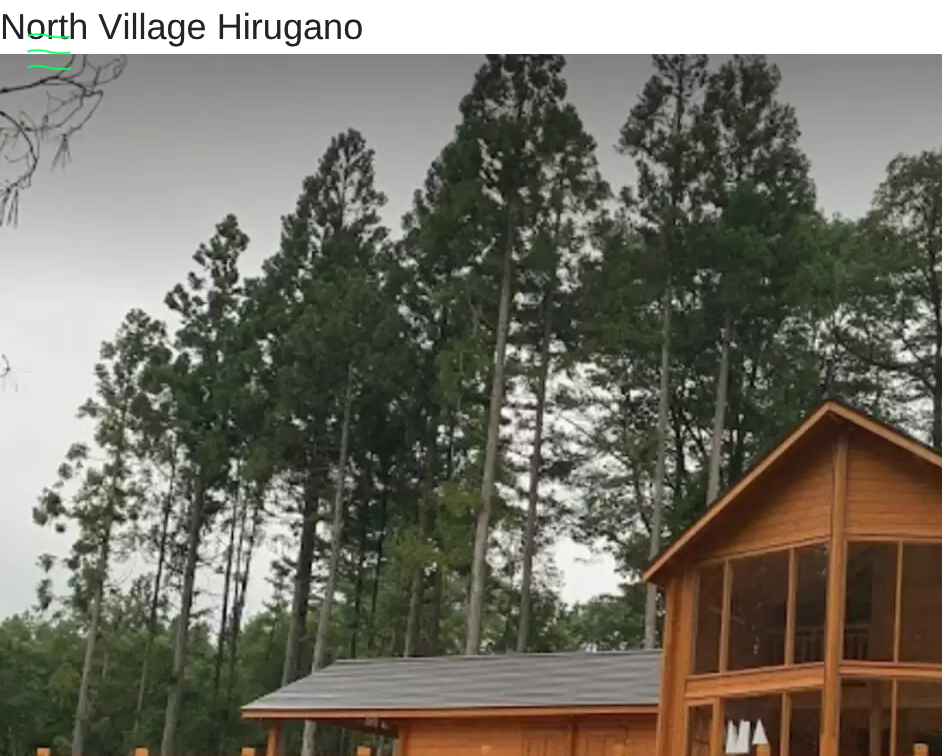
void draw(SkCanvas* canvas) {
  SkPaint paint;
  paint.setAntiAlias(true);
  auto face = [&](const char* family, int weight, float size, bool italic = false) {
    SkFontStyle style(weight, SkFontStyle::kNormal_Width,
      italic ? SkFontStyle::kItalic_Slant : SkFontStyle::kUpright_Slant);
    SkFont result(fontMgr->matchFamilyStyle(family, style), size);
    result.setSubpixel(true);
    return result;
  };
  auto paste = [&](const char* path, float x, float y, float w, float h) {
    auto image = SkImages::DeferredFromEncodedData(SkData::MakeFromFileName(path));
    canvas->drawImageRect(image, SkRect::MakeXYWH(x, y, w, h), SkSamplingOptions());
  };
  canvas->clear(0xffffffff);
  paste("img/1.png", 0, 54, 942, 702);
  auto f0 = face("Liberation Sans", 400, 36.1f);
  paint.setColor(0xff212529);
  canvas->drawString("North Village Hirugano", 0, 39, f0, paint);
  paste("img/2.png", 27, 33, 44, 37);
}
